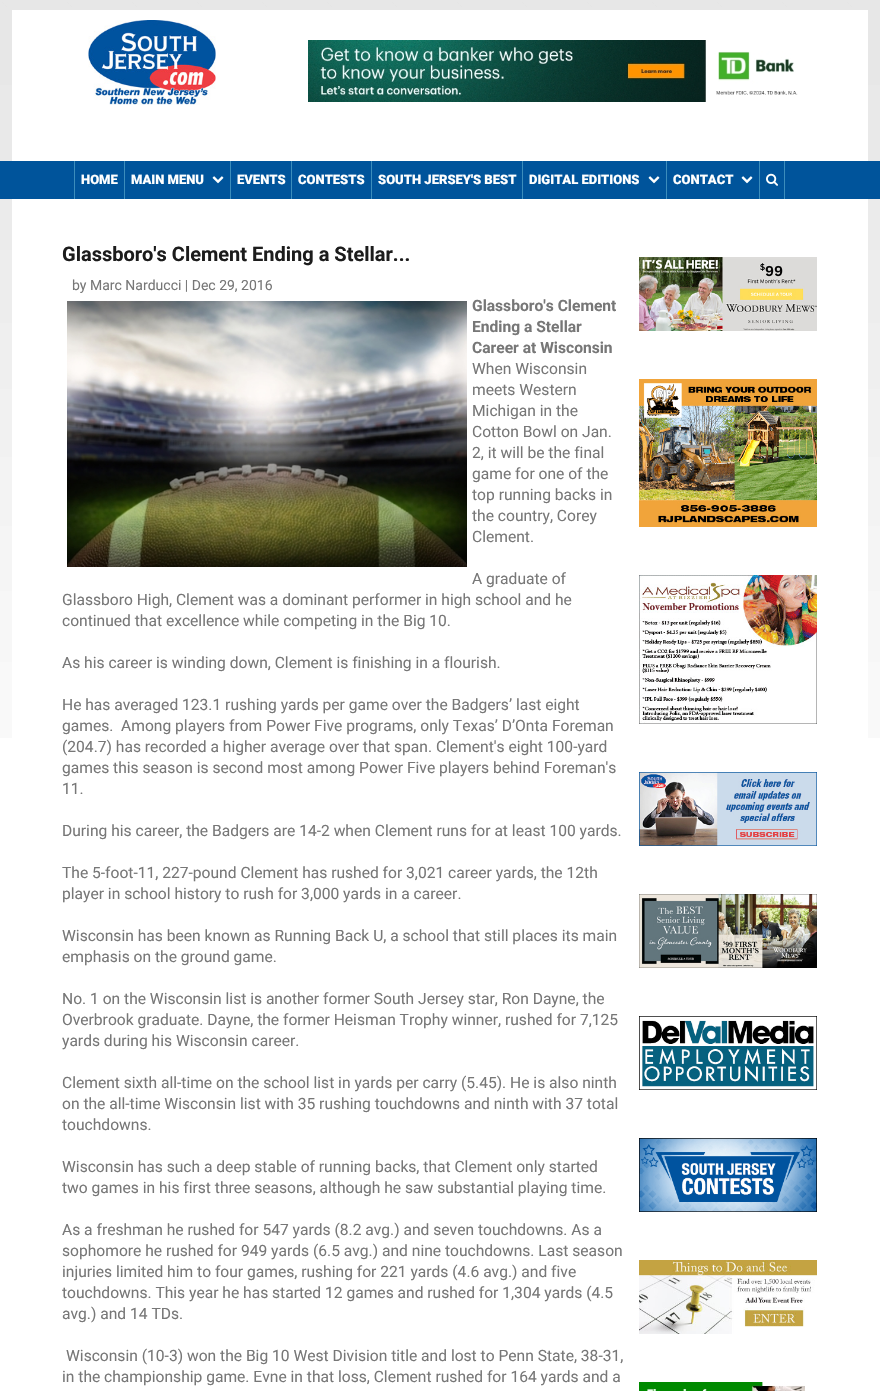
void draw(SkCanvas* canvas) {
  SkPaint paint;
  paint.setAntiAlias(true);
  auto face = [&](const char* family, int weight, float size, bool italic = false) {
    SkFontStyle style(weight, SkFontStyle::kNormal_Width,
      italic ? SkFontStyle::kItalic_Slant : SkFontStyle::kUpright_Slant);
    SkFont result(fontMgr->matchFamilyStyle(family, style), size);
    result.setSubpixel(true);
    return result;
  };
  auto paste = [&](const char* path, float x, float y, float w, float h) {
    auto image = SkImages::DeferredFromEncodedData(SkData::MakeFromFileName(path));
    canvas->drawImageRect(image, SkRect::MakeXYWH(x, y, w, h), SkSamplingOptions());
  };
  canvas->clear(0xffffffff);
  paste("img/1.png", 0, 0, 880, 738);
  paint.setColor(0xffffffff);
  canvas->drawRect(SkRect::MakeXYWH(12, 10, 856, 151), paint);
  paste("img/2.png", 88, 20, 128, 85);
  paste("img/3.png", 308, 40, 490, 62);
  {
    const struct { float x, y, w, h; SkColor color; } items[] = {
      {0, 161, 880, 38, 0xff00549b},
      {74, 161, 1, 38, 0xff3c8dbc},
      {124, 161, 1, 38, 0xff3c8dbc},
      {230, 161, 1, 38, 0xff3c8dbc},
    };
    for (auto [x, y, w, h, color] : items) {
      paint.setColor(color);
      canvas->drawRect(SkRect::MakeXYWH(x, y, w, h), paint);
    }
  }
  paste("img/4.png", 212, 176, 12, 8);
  {
    const struct { float x, y, w, h; SkColor color; } items[] = {
      {291, 161, 1, 38, 0xff3c8dbc},
      {371, 161, 1, 38, 0xff3c8dbc},
      {522, 161, 1, 38, 0xff3c8dbc},
      {666, 161, 1, 38, 0xff3c8dbc},
    };
    for (auto [x, y, w, h, color] : items) {
      paint.setColor(color);
      canvas->drawRect(SkRect::MakeXYWH(x, y, w, h), paint);
    }
  }
  paste("img/4.png", 648, 176, 12, 8);
  canvas->drawRect(SkRect::MakeXYWH(759, 161, 1, 38), paint);
  paste("img/4.png", 741, 176, 12, 8);
  canvas->drawRect(SkRect::MakeXYWH(784, 161, 1, 38), paint);
  paste("img/5.png", 766, 173, 12, 13);
  paint.setColor(0xffffffff);
  canvas->drawRect(SkRect::MakeXYWH(12, 199, 856, 539), paint);
  paste("img/6.png", 67, 301, 400, 266);
  paste("img/7.png", 639, 257, 178, 74);
  paste("img/8.png", 639, 379, 178, 148);
  paste("img/9.png", 639, 575, 178, 149);
  paste("img/10.png", 639, 772, 178, 74);
  paste("img/11.png", 639, 894, 178, 74);
  paste("img/12.png", 639, 1016, 178, 74);
  paste("img/13.png", 639, 1138, 178, 74);
  paste("img/14.png", 639, 1260, 178, 74);
  paste("img/15.png", 639, 1382, 166, 9);
  auto f0 = face("Roboto", 900, 13);
  {
    const struct { const char* s; float x, y; } items[] = {
      {"HOME", 81, 184},
      {"MAIN MENU", 131, 184},
      {"EVENTS", 237, 184},
      {"CONTESTS", 298, 184},
      {"SOUTH JERSEY'S BEST", 378, 184},
      {"DIGITAL EDITIONS", 529, 184},
      {"CONTACT", 673, 184},
    };
    for (auto [s, x, y] : items) {
      canvas->drawString(s, x, y, f0, paint);
    }
  }
  auto f1 = face("Roboto", 700, 20);
  paint.setColor(0xff1c1c1c);
  canvas->drawString("Glassboro's Clement Ending a Stellar...", 62, 261, f1, paint);
  auto f2 = face("Roboto", 400, 14);
  paint.setColor(0xff777777);
  canvas->drawString("by Marc Narducci | Dec 29, 2016", 72, 290, f2, paint);
  auto f3 = face("Roboto", 700, 15.6f);
  {
    const struct { const char* s; float x, y; } items[] = {
      {"Glassboro's Clement", 472, 311},
      {"Ending a Stellar", 472, 332},
      {"Career at Wisconsin", 472, 353},
    };
    for (auto [s, x, y] : items) {
      canvas->drawString(s, x, y, f3, paint);
    }
  }
  auto f4 = face("Roboto", 400, 15.6f);
  {
    const struct { const char* s; float x, y; } items[] = {
      {"When Wisconsin", 472, 374},
      {"meets Western", 472, 395},
      {"Michigan in the", 472, 416},
      {"Cotton Bowl on Jan.", 472, 437},
      {"2, it will be the final", 472, 458},
      {"game for one of the", 472, 479},
      {"top running backs in", 472, 500},
      {"the country, Corey", 472, 521},
      {"Clement.", 472, 542},
      {"A graduate of", 472, 584},
      {"Glassboro High, Clement was a dominant performer in high school and he", 62, 605},
      {"continued that excellence while competing in the Big 10.", 62, 626},
      {"As his career is winding down, Clement is finishing in a flourish.", 62, 668},
      {"He has averaged 123.1 rushing yards per game over the Badgers’ last eight", 62, 710},
      {"games.  Among players from Power Five programs, only Texas’ D’Onta Foreman", 62, 731},
      {"(204.7) has recorded a higher average over that span. Clement's eight 100-yard", 62, 752},
      {"games this season is second most among Power Five players behind Foreman's", 62, 773},
      {"11.", 62, 794},
      {"During his career, the Badgers are 14-2 when Clement runs for at least 100 yards.", 62, 836},
      {"The 5-foot-11, 227-pound Clement has rushed for 3,021 career yards, the 12th", 62, 878},
      {"player in school history to rush for 3,000 yards in a career.", 62, 899},
      {"Wisconsin has been known as Running Back U, a school that still places its main", 62, 941},
      {"emphasis on the ground game.", 62, 962},
      {"No. 1 on the Wisconsin list is another former South Jersey star, Ron Dayne, the", 62, 1004},
      {"Overbrook graduate. Dayne, the former Heisman Trophy winner, rushed for 7,125", 62, 1025},
      {"yards during his Wisconsin career.", 62, 1046},
      {"Clement sixth all-time on the school list in yards per carry (5.45). He is also ninth", 62, 1088},
      {"on the all-time Wisconsin list with 35 rushing touchdowns and ninth with 37 total", 62, 1109},
      {"touchdowns.", 62, 1130},
      {"Wisconsin has such a deep stable of running backs, that Clement only started", 62, 1172},
      {"two games in his first three seasons, although he saw substantial playing time.", 62, 1193},
      {"As a freshman he rushed for 547 yards (8.2 avg.) and seven touchdowns. As a", 62, 1235},
      {"sophomore he rushed for 949 yards (6.5 avg.) and nine touchdowns. Last season", 62, 1256},
      {"injuries limited him to four games, rushing for 221 yards (4.6 avg.) and five", 62, 1277},
      {"touchdowns. This year he has started 12 games and rushed for 1,304 yards (4.5", 62, 1298},
      {"avg.) and 14 TDs.", 62, 1319},
      {"Wisconsin (10-3) won the Big 10 West Division title and lost to Penn State, 38-31,", 66, 1361},
      {"in the championship game. Evne in that loss, Clement rushed for 164 yards and a", 62, 1382},
    };
    for (auto [s, x, y] : items) {
      canvas->drawString(s, x, y, f4, paint);
    }
  }
}
